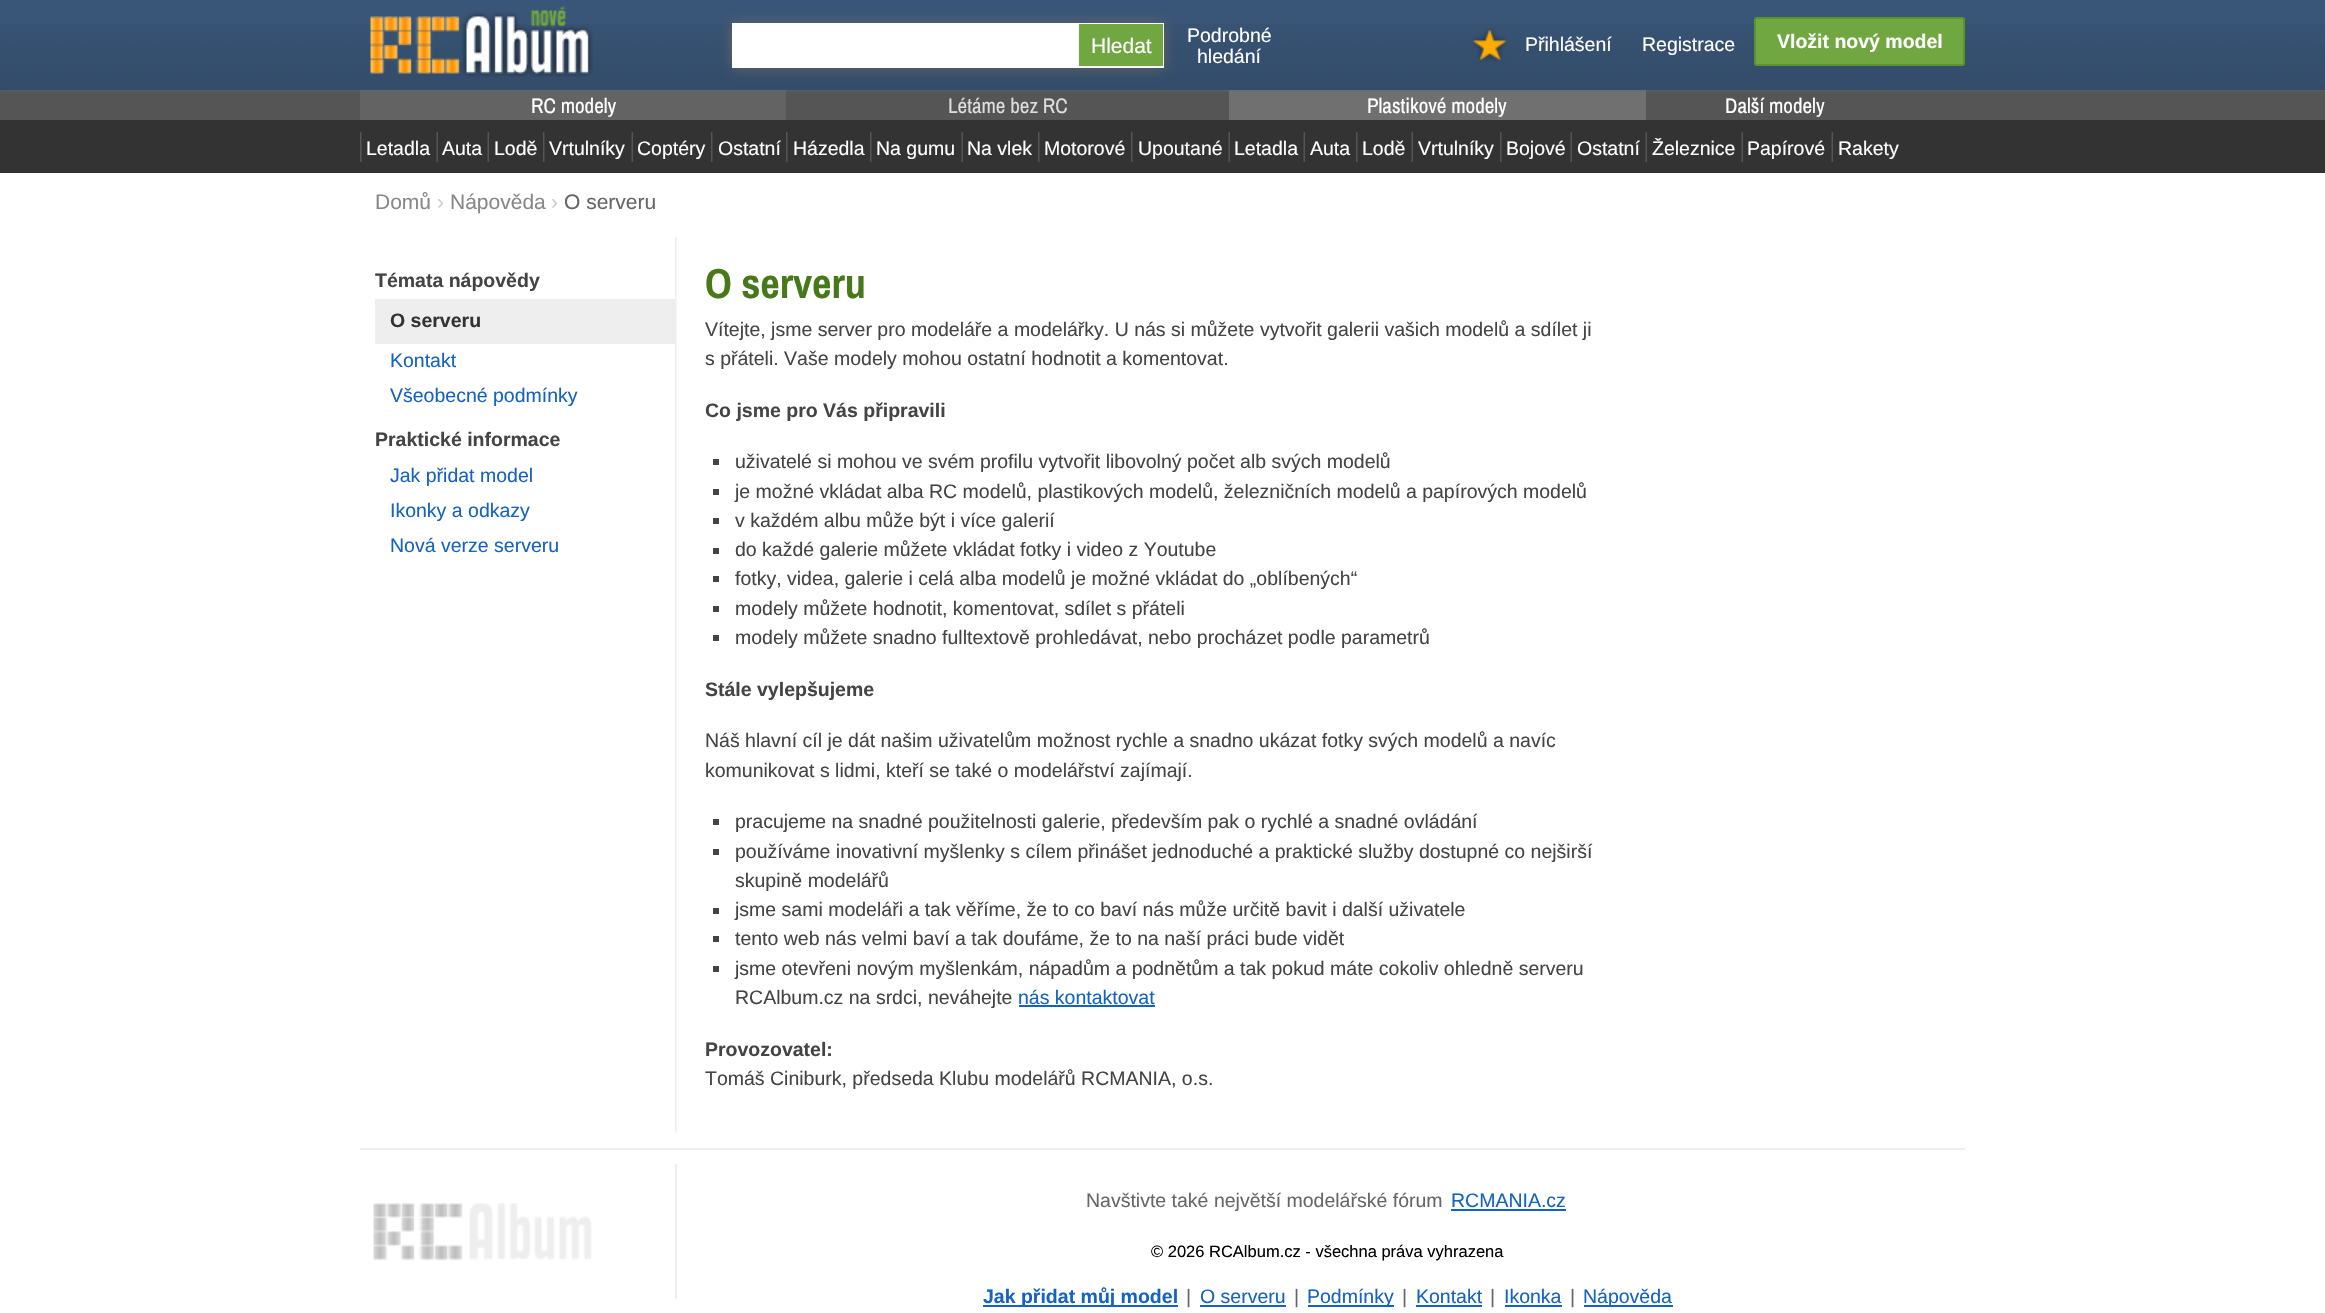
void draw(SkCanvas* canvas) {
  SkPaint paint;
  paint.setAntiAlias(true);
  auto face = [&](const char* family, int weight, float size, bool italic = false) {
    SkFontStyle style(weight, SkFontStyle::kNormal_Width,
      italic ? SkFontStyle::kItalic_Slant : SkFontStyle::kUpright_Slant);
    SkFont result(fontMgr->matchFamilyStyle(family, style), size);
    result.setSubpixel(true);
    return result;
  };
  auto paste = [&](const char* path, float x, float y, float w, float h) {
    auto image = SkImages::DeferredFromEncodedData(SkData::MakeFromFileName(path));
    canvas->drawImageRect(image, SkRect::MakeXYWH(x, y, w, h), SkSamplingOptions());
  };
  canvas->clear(0xffffffff);
  {
    const struct { float x, y, w, h; SkColor color; } items[] = {
      {0, 90, 2325, 30, 0xff555555},
      {360, 90, 426, 30, 0xff636363},
      {1229, 90, 417, 30, 0xff707070},
    };
    for (auto [x, y, w, h, color] : items) {
      paint.setColor(color);
      canvas->drawRect(SkRect::MakeXYWH(x, y, w, h), paint);
    }
  }
  paint.setColor(0xff666666);
  paint.setMaskFilter(SkMaskFilter::MakeBlur(kNormal_SkBlurStyle, 1.5f));
  canvas->drawRect(SkRect::MakeXYWH(0, 0, 2325, 90), paint);
  paint.setMaskFilter(nullptr);
  paint.setColor(0xff395577);
  canvas->drawRect(SkRect::MakeXYWH(0, 0, 2325, 90), paint);
  paste("img/1.png", 0, 24, 2325, 66);
  canvas->drawRect(SkRect::MakeXYWH(360, 24, 1605, 66), paint);
  paste("img/2.png", 360, 24, 1605, 66);
  paste("img/3.png", 370, 6, 223, 71);
  paint.setColor(0xff666666);
  paint.setMaskFilter(SkMaskFilter::MakeBlur(kNormal_SkBlurStyle, 6));
  canvas->drawRect(SkRect::MakeXYWH(732, 23, 432, 45), paint);
  paint.setMaskFilter(nullptr);
  paint.setColor(0xffffffff);
  canvas->drawRect(SkRect::MakeXYWH(732, 23, 432, 45), paint);
  paint.setColor(0xff71a740);
  canvas->drawRect(SkRect::MakeXYWH(1079, 24, 84, 42), paint);
  paste("img/4.png", 1473, 28, 34, 34);
  canvas->drawRoundRect(SkRect::MakeXYWH(1755, 18, 209, 47), 2, 2, paint);
  paint.setStroke(true);
  paint.setStrokeWidth(2);
  paint.setColor(0xff5b9429);
  canvas->drawRoundRect(SkRect::MakeXYWH(1755, 18, 209, 47), 2, 2, paint);
  paint.setStroke(false);
  paint.setColor(0xff333333);
  canvas->drawRect(SkRect::MakeXYWH(0, 120, 2325, 53), paint);
  paste("img/5.png", 360, 132, 2, 30);
  paste("img/6.png", 436, 132, 2, 30);
  paste("img/6.png", 487, 132, 2, 30);
  paste("img/5.png", 543, 132, 2, 30);
  paste("img/6.png", 631, 132, 2, 30);
  paste("img/5.png", 711, 132, 2, 30);
  paste("img/5.png", 786, 132, 2, 30);
  paste("img/5.png", 870, 132, 2, 30);
  paste("img/6.png", 961, 132, 2, 30);
  paste("img/5.png", 1038, 132, 2, 30);
  paste("img/5.png", 1131, 132, 2, 30);
  paste("img/6.png", 1228, 132, 2, 30);
  paste("img/6.png", 1303, 132, 2, 30);
  paste("img/5.png", 1356, 132, 2, 30);
  paste("img/6.png", 1411, 132, 2, 30);
  paste("img/5.png", 1500, 132, 2, 30);
  paste("img/6.png", 1570, 132, 2, 30);
  paste("img/6.png", 1645, 132, 2, 30);
  paste("img/6.png", 1741, 132, 2, 30);
  paste("img/6.png", 1831, 132, 2, 30);
  paste("img/7.png", 675, 237, 2, 896);
  {
    const struct { float x, y, w, h; SkColor color; } items[] = {
      {375, 299, 300, 45, 0xffeeeeee},
      {713, 459, 6, 6, 0xff444444},
      {713, 489, 6, 6, 0xff444444},
      {713, 518, 6, 6, 0xff444444},
      {713, 548, 6, 6, 0xff444444},
      {713, 576, 6, 6, 0xff444444},
      {713, 606, 6, 6, 0xff444444},
      {713, 635, 6, 6, 0xff444444},
      {713, 819, 6, 6, 0xff444444},
      {713, 849, 6, 6, 0xff444444},
      {713, 908, 6, 6, 0xff444444},
      {713, 936, 6, 6, 0xff444444},
      {713, 966, 6, 6, 0xff444444},
      {1019, 1005, 136, 2, 0xff1462c1},
      {360, 1148, 1605, 2, 0xffeeeeee},
      {675, 1164, 2, 135, 0xffeeeeee},
    };
    for (auto [x, y, w, h, color] : items) {
      paint.setColor(color);
      canvas->drawRect(SkRect::MakeXYWH(x, y, w, h), paint);
    }
  }
  paste("img/8.png", 373, 1203, 219, 58);
  {
    const struct { float x, y, w, h; SkColor color; } items[] = {
      {1451, 1209, 115, 2, 0xff1462c1},
      {983, 1305, 195, 2, 0xff1462c1},
      {1200, 1305, 86, 2, 0xff1462c1},
      {1308, 1305, 86, 2, 0xff1462c1},
      {1416, 1305, 66, 2, 0xff1462c1},
      {1505, 1305, 57, 2, 0xff1462c1},
      {1584, 1305, 89, 2, 0xff1462c1},
    };
    for (auto [x, y, w, h, color] : items) {
      paint.setColor(color);
      canvas->drawRect(SkRect::MakeXYWH(x, y, w, h), paint);
    }
  }
  auto f0 = face("Liberation Sans", 400, 21);
  paint.setColor(0xffffffff);
  canvas->drawString("Hledat", 1091, 53, f0, paint);
  auto f1 = face("Liberation Sans", 400, 19.5f);
  {
    const struct { const char* s; float x, y; } items[] = {
      {"Podrobné", 1187, 42},
      {"hledání", 1197, 63},
      {"Přihlášení", 1525, 51},
      {"Registrace", 1642, 51},
    };
    for (auto [s, x, y] : items) {
      canvas->drawString(s, x, y, f1, paint);
    }
  }
  auto f2 = face("Liberation Sans", 700, 19.5f);
  canvas->drawString("Vložit nový model", 1777, 48, f2, paint);
  auto f3 = face("Archivo Narrow", 400, 21);
  canvas->drawString("RC modely", 531, 113, f3, paint);
  {
    const struct { const char* s; float x, y; } items[] = {
      {"Letadla", 366, 155},
      {"Auta", 442, 155},
      {"Lodě", 494, 155},
      {"Vrtulníky", 549, 155},
      {"Coptéry", 637, 155},
      {"Ostatní", 718, 155},
    };
    for (auto [s, x, y] : items) {
      canvas->drawString(s, x, y, f1, paint);
    }
  }
  paint.setColor(0xffdddddd);
  canvas->drawString("Létáme bez RC", 948, 113, f3, paint);
  paint.setColor(0xffffffff);
  {
    const struct { const char* s; float x, y; } items[] = {
      {"Házedla", 793, 155},
      {"Na gumu", 876, 155},
      {"Na vlek", 967, 155},
      {"Motorové", 1044, 155},
      {"Upoutané", 1138, 155},
    };
    for (auto [s, x, y] : items) {
      canvas->drawString(s, x, y, f1, paint);
    }
  }
  canvas->drawString("Plastikové modely", 1367, 113, f3, paint);
  {
    const struct { const char* s; float x, y; } items[] = {
      {"Letadla", 1234, 155},
      {"Auta", 1310, 155},
      {"Lodě", 1362, 155},
      {"Vrtulníky", 1418, 155},
      {"Bojové", 1506, 155},
      {"Ostatní", 1577, 155},
    };
    for (auto [s, x, y] : items) {
      canvas->drawString(s, x, y, f1, paint);
    }
  }
  canvas->drawString("Další modely", 1725, 113, f3, paint);
  {
    const struct { const char* s; float x, y; } items[] = {
      {"Železnice", 1652, 155},
      {"Papírové", 1747, 155},
      {"Rakety", 1838, 155},
    };
    for (auto [s, x, y] : items) {
      canvas->drawString(s, x, y, f1, paint);
    }
  }
  paint.setColor(0xff888888);
  canvas->drawString("Domů", 375, 209, f0, paint);
  paint.setColor(0xffcccccc);
  canvas->drawString("›", 437, 209, f0, paint);
  paint.setColor(0xff888888);
  canvas->drawString("Nápověda", 450, 209, f0, paint);
  paint.setColor(0xffcccccc);
  canvas->drawString("›", 551, 209, f0, paint);
  paint.setColor(0xff666666);
  canvas->drawString("O serveru", 564, 209, f0, paint);
  paint.setColor(0xff444444);
  canvas->drawString("Témata nápovědy", 375, 287, f2, paint);
  paint.setColor(0xff333333);
  canvas->drawString("O serveru", 390, 327, f2, paint);
  paint.setColor(0xff1462c1);
  canvas->drawString("Kontakt", 390, 367, f1, paint);
  canvas->drawString("Všeobecné podmínky", 390, 402, f1, paint);
  paint.setColor(0xff444444);
  canvas->drawString("Praktické informace", 375, 446, f2, paint);
  paint.setColor(0xff1462c1);
  {
    const struct { const char* s; float x, y; } items[] = {
      {"Jak přidat model", 390, 482},
      {"Ikonky a odkazy", 390, 517},
      {"Nová verze serveru", 390, 552},
    };
    for (auto [s, x, y] : items) {
      canvas->drawString(s, x, y, f1, paint);
    }
  }
  auto f4 = face("Archivo Narrow", 700, 42);
  paint.setColor(0xff47791b);
  canvas->drawString("O serveru", 705, 298, f4, paint);
  paint.setColor(0xff444444);
  canvas->drawString("Vítejte, jsme server pro modeláře a modelářky. U nás si můžete vytvořit galerii vašich modelů a sdílet ji", 705, 336, f1, paint);
  canvas->drawString("s přáteli. Vaše modely mohou ostatní hodnotit a komentovat.", 705, 365, f1, paint);
  canvas->drawString("Co jsme pro Vás připravili", 705, 417, f2, paint);
  {
    const struct { const char* s; float x, y; } items[] = {
      {"uživatelé si mohou ve svém profilu vytvořit libovolný počet alb svých modelů", 735, 468},
      {"je možné vkládat alba RC modelů, plastikových modelů, železničních modelů a papírových modelů", 735, 498},
      {"v každém albu může být i více galerií", 735, 527},
      {"do každé galerie můžete vkládat fotky i video z Youtube", 735, 556},
      {"fotky, videa, galerie i celá alba modelů je možné vkládat do „oblíbených“", 735, 585},
      {"modely můžete hodnotit, komentovat, sdílet s přáteli", 735, 615},
      {"modely můžete snadno fulltextově prohledávat, nebo procházet podle parametrů", 735, 644},
    };
    for (auto [s, x, y] : items) {
      canvas->drawString(s, x, y, f1, paint);
    }
  }
  canvas->drawString("Stále vylepšujeme", 705, 696, f2, paint);
  {
    const struct { const char* s; float x, y; } items[] = {
      {"Náš hlavní cíl je dát našim uživatelům možnost rychle a snadno ukázat fotky svých modelů a navíc", 705, 747},
      {"komunikovat s lidmi, kteří se také o modelářství zajímají.", 705, 777},
      {"pracujeme na snadné použitelnosti galerie, především pak o rychlé a snadné ovládání", 735, 828},
      {"používáme inovativní myšlenky s cílem přinášet jednoduché a praktické služby dostupné co nejširší", 735, 858},
      {"skupině modelářů", 735, 887},
      {"jsme sami modeláři a tak věříme, že to co baví nás může určitě bavit i další uživatele", 735, 916},
      {"tento web nás velmi baví a tak doufáme, že to na naší práci bude vidět", 735, 945},
      {"jsme otevřeni novým myšlenkám, nápadům a podnětům a tak pokud máte cokoliv ohledně serveru", 735, 975},
      {"RCAlbum.cz na srdci, neváhejte", 735, 1004},
    };
    for (auto [s, x, y] : items) {
      canvas->drawString(s, x, y, f1, paint);
    }
  }
  paint.setColor(0xff1462c1);
  canvas->drawString("nás kontaktovat", 1018, 1004, f1, paint);
  paint.setColor(0xff444444);
  canvas->drawString("Provozovatel:", 705, 1056, f2, paint);
  canvas->drawString("Tomáš Ciniburk, předseda Klubu modelářů RCMANIA, o.s.", 705, 1085, f1, paint);
  paint.setColor(0xff666666);
  canvas->drawString("Navštivte také největší modelářské fórum", 1086, 1207, f1, paint);
  paint.setColor(0xff1462c1);
  canvas->drawString("RCMANIA.cz", 1451, 1207, f1, paint);
  auto f5 = face("Liberation Sans", 400, 16.5f);
  paint.setColor(0xff000000);
  canvas->drawString("© 2026 RCAlbum.cz - všechna práva vyhrazena", 1151, 1257, f5, paint);
  paint.setColor(0xff1462c1);
  canvas->drawString("Jak přidat můj model", 983, 1303, f2, paint);
  paint.setColor(0xff666666);
  canvas->drawString("|", 1186, 1303, f1, paint);
  paint.setColor(0xff1462c1);
  canvas->drawString("O serveru", 1200, 1303, f1, paint);
  paint.setColor(0xff666666);
  canvas->drawString("|", 1294, 1303, f1, paint);
  paint.setColor(0xff1462c1);
  canvas->drawString("Podmínky", 1307, 1303, f1, paint);
  paint.setColor(0xff666666);
  canvas->drawString("|", 1402, 1303, f1, paint);
  paint.setColor(0xff1462c1);
  canvas->drawString("Kontakt", 1416, 1303, f1, paint);
  paint.setColor(0xff666666);
  canvas->drawString("|", 1490, 1303, f1, paint);
  paint.setColor(0xff1462c1);
  canvas->drawString("Ikonka", 1504, 1303, f1, paint);
  paint.setColor(0xff666666);
  canvas->drawString("|", 1570, 1303, f1, paint);
  paint.setColor(0xff1462c1);
  canvas->drawString("Nápověda", 1583, 1303, f1, paint);
}
